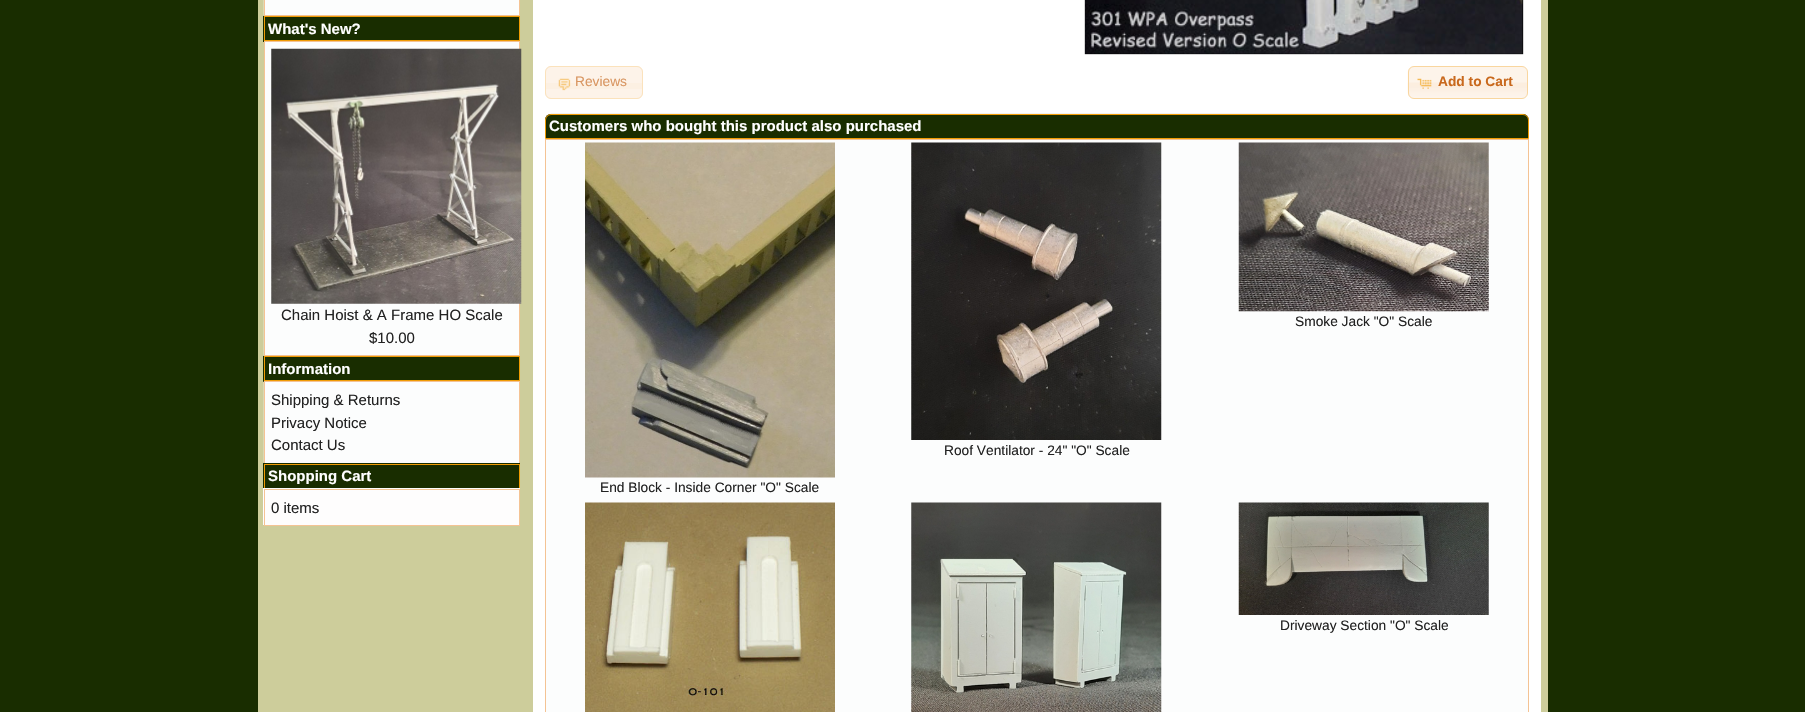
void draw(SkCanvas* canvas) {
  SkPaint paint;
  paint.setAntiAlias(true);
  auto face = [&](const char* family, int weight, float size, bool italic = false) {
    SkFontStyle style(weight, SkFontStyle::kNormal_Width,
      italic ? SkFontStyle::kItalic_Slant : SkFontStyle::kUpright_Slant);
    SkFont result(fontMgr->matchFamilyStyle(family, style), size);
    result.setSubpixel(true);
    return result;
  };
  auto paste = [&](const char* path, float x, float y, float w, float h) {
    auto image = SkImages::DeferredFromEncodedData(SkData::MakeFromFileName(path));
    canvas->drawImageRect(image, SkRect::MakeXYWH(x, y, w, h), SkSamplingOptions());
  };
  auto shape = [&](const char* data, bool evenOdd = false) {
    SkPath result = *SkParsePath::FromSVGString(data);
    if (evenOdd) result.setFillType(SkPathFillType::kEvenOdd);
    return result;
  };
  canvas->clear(0xff192d00);
  paint.setColor(0xffcdcd9b);
  canvas->drawRect(SkRect::MakeXYWH(258, 0, 1290, 712), paint);
  paint.setColor(0xfffcfdfd);
  canvas->drawRect(SkRect::MakeXYWH(264.5f, -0.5f, 255, 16), paint);
  paint.setStroke(true);
  paint.setStrokeWidth(1);
  paint.setColor(0xfff4c394);
  canvas->drawRect(SkRect::MakeXYWH(264.5f, -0.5f, 255, 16), paint);
  paint.setStroke(false);
  paint.setColor(0xffdadab4);
  canvas->drawRect(SkRect::MakeXYWH(263, 0, 1, 15), paint);
  paint.setColor(0xff192d00);
  canvas->drawRect(SkRect::MakeXYWH(263, 16, 256, 26), paint);
  paint.setStroke(true);
  paint.setColor(0xfff09b05);
  canvas->drawRect(SkRect::MakeXYWH(264.5f, 16.5f, 255, 24), paint);
  paint.setStroke(false);
  paint.setColor(0xfffcfdfd);
  canvas->drawRect(SkRect::MakeXYWH(264.5f, 41.5f, 255, 314), paint);
  paint.setStroke(true);
  paint.setColor(0xfff4c394);
  canvas->drawRect(SkRect::MakeXYWH(264.5f, 41.5f, 255, 314), paint);
  paste("img/1.png", 263, 230, 1, 125);
  paste("img/2.png", 271, 48, 251, 256);
  paint.setStroke(false);
  paint.setColor(0xff192d00);
  canvas->drawRect(SkRect::MakeXYWH(263, 356, 256, 26), paint);
  paint.setStroke(true);
  paint.setColor(0xfff09b05);
  canvas->drawRect(SkRect::MakeXYWH(264.5f, 356.5f, 255, 24), paint);
  paint.setStroke(false);
  paint.setColor(0xfffcfdfd);
  canvas->drawRect(SkRect::MakeXYWH(264.5f, 381.5f, 255, 82), paint);
  paint.setStroke(true);
  paint.setColor(0xfff4c394);
  canvas->drawRect(SkRect::MakeXYWH(264.5f, 381.5f, 255, 82), paint);
  paste("img/3.png", 263, 381, 1, 82);
  paint.setStroke(false);
  paint.setColor(0xff192d00);
  canvas->drawRect(SkRect::MakeXYWH(263, 463, 257, 25), paint);
  paint.setStroke(true);
  paint.setColor(0xfff09b05);
  canvas->drawRect(SkRect::MakeXYWH(264.5f, 464.5f, 255, 24), paint);
  paint.setStroke(false);
  paint.setColor(0xfffefdfd);
  canvas->drawRect(SkRect::MakeXYWH(263, 488, 257, 37), paint);
  paint.setStroke(true);
  paint.setColor(0xfff4c394);
  canvas->drawRect(SkRect::MakeXYWH(264.5f, 489.5f, 255, 36), paint);
  paint.setStroke(false);
  paint.setColor(0xffffffff);
  canvas->drawRect(SkRect::MakeXYWH(533, 0, 1008, 712), paint);
  paint.setColor(0xff000000);
  paint.setMaskFilter(SkMaskFilter::MakeBlur(kNormal_SkBlurStyle, 0.5f));
  canvas->drawRect(SkRect::MakeXYWH(1085, -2, 438, 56), paint);
  paint.setMaskFilter(nullptr);
  paste("img/4.png", 1085, 0, 438, 54);
  paint.setColor(0xfffdf3e9);
  canvas->drawRoundRect(SkRect::MakeXYWH(545, 66, 98, 33), 6, 6, paint);
  paint.setColor(0xfffcf0e2);
  canvas->drawRect(SkRect::MakeXYWH(545, 83, 97, 6), paint);
  paint.setStroke(true);
  paint.setColor(0xfffbe2bc);
  canvas->drawRoundRect(SkRect::MakeXYWH(545.5f, 66.5f, 97, 32), 5.5f, 5.5f, paint);
  paste("img/5.png", 558, 78, 13, 13);
  paste("img/6.png", 1407, 66, 120, 33);
  paint.setColor(0xfff9d69f);
  canvas->drawRoundRect(SkRect::MakeXYWH(1408.5f, 66.5f, 119, 32), 5.5f, 5.5f, paint);
  paste("img/7.png", 1417, 78, 15, 11);
  paste("img/8.png", 545, 113, 984, 25);
  paint.setColor(0xfff09b05);
  canvas->drawPath(shape("M551 114.5H1523C1526 114.5 1528.5 117 1528.5 120V138.5H545.5V120C545.5 117 548 114.5 551 114.5Z"), paint);
  paint.setStroke(false);
  paint.setColor(0xfffcfdfd);
  canvas->drawRect(SkRect::MakeXYWH(545.5f, 139.5f, 983, 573), paint);
  paint.setStroke(true);
  paint.setColor(0xfff4c394);
  canvas->drawRect(SkRect::MakeXYWH(545.5f, 139.5f, 983, 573), paint);
  paste("img/9.png", 1238, 142, 251, 170);
  paste("img/10.png", 911, 142, 251, 298);
  paste("img/11.png", 585, 142, 250, 336);
  paste("img/12.png", 585, 502, 250, 210);
  paste("img/13.png", 911, 502, 251, 210);
  paste("img/14.png", 1238, 502, 251, 113);
  auto f0 = face("Liberation Sans", 700, 15);
  paint.setStroke(false);
  paint.setColor(0xffffffff);
  canvas->drawString("What's New?", 268, 34, f0, paint);
  auto f1 = face("Liberation Sans", 400, 15);
  paint.setColor(0xff222222);
  canvas->drawString("Chain Hoist & A Frame HO Scale", 281, 320, f1, paint);
  canvas->drawString("$10.00", 369, 343, f1, paint);
  paint.setColor(0xffffffff);
  canvas->drawString("Information", 268, 374, f0, paint);
  paint.setColor(0xff222222);
  {
    const struct { const char* s; float x, y; } items[] = {
      {"Shipping & Returns", 271, 405},
      {"Privacy Notice", 271, 428},
      {"Contact Us", 271, 450},
    };
    for (auto [s, x, y] : items) {
      canvas->drawString(s, x, y, f1, paint);
    }
  }
  paint.setColor(0xffffffff);
  canvas->drawString("Shopping Cart", 268, 481, f0, paint);
  paint.setColor(0xff222222);
  canvas->drawString("0 items", 271, 513, f1, paint);
  auto f2 = face("Liberation Sans", 400, 13.75f);
  paint.setColor(0xffd99661);
  canvas->drawString("Reviews", 575, 86, f2, paint);
  auto f3 = face("Liberation Sans", 700, 13.75f);
  paint.setColor(0xffc9691d);
  canvas->drawString("Add to Cart", 1438, 86, f3, paint);
  paint.setColor(0xffffffff);
  canvas->drawString("Customers who bought this product also purchased", 549, 131, f0, paint);
  paint.setColor(0xff222222);
  {
    const struct { const char* s; float x, y; } items[] = {
      {"Smoke Jack \"O\" Scale", 1295, 326},
      {"Roof Ventilator - 24\" \"O\" Scale", 944, 455},
      {"End Block - Inside Corner \"O\" Scale", 600, 492},
      {"Driveway Section \"O\" Scale", 1280, 630},
    };
    for (auto [s, x, y] : items) {
      canvas->drawString(s, x, y, f2, paint);
    }
  }
}
